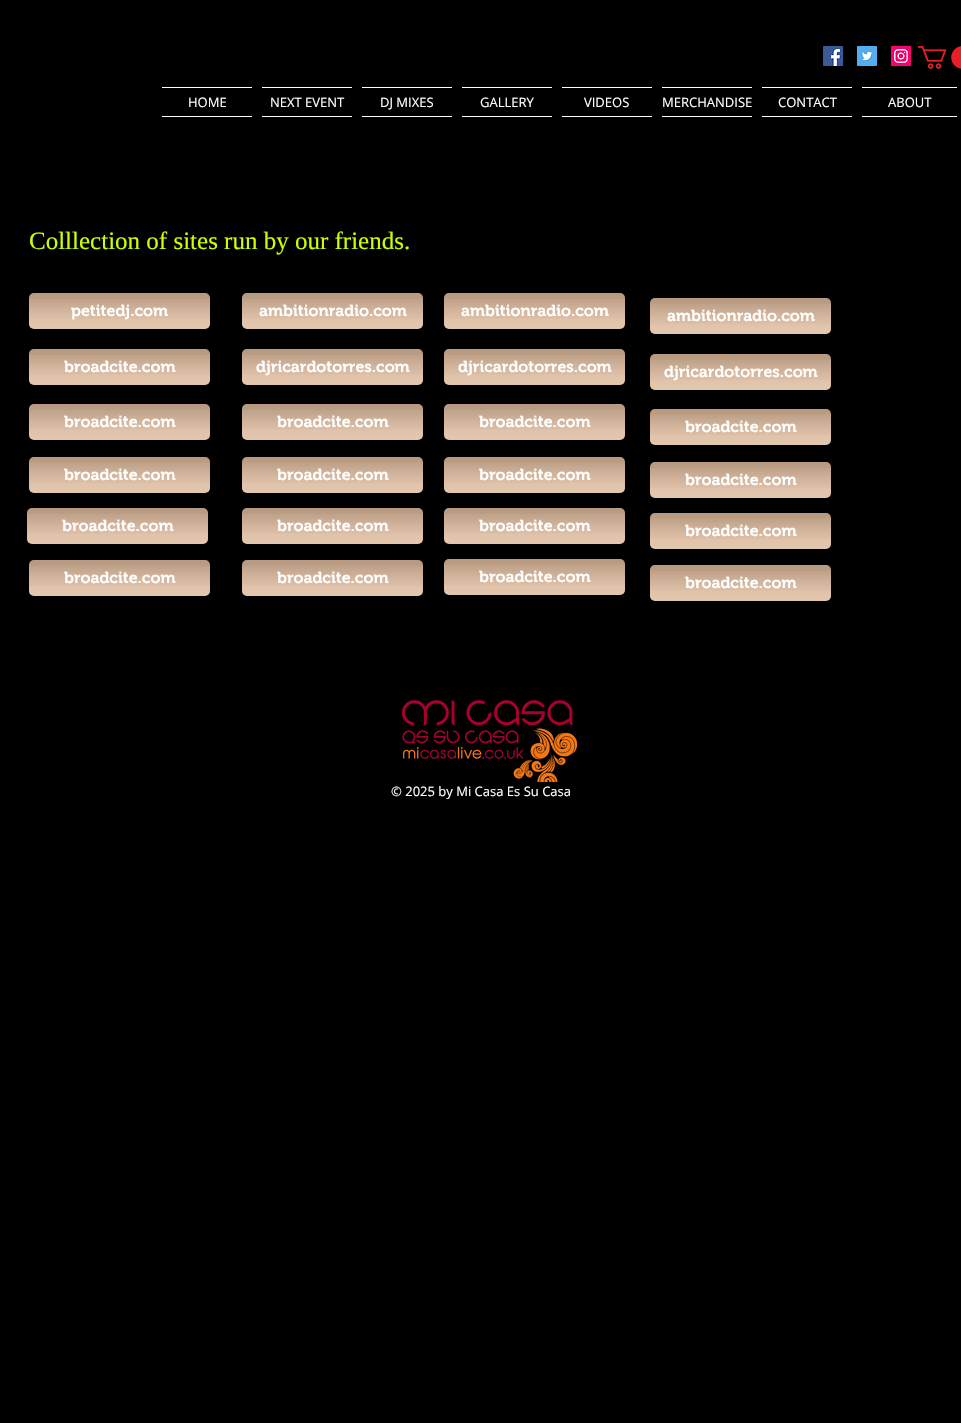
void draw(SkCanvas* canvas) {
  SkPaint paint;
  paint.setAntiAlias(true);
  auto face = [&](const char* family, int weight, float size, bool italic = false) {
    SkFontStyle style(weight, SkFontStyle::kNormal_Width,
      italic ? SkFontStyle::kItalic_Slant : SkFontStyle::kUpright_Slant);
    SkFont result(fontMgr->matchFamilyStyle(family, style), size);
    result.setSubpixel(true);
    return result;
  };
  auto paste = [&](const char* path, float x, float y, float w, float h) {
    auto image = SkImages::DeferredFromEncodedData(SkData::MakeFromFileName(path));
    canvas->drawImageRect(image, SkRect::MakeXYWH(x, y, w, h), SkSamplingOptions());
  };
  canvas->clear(0xff000000);
  paste("img/1.png", 823, 46, 20, 20);
  paste("img/2.png", 857, 46, 20, 20);
  paste("img/3.png", 891, 46, 20, 20);
  paste("img/4.png", 918, 46, 43, 23);
  {
    const struct { float x, y, w, h; SkColor color; } items[] = {
      {162, 87, 90, 1, 0xffffffff},
      {162, 116, 90, 1, 0xffffffff},
      {262, 87, 90, 1, 0xffffffff},
      {262, 116, 90, 1, 0xffffffff},
      {362, 87, 90, 1, 0xffffffff},
      {362, 116, 90, 1, 0xffffffff},
      {462, 87, 90, 1, 0xffffffff},
      {462, 116, 90, 1, 0xffffffff},
      {562, 87, 90, 1, 0xffffffff},
      {562, 116, 90, 1, 0xffffffff},
      {662, 87, 90, 1, 0xffffffff},
      {662, 116, 90, 1, 0xffffffff},
      {762, 87, 90, 1, 0xffffffff},
      {762, 116, 90, 1, 0xffffffff},
      {862, 87, 95, 1, 0xffffffff},
      {862, 116, 95, 1, 0xffffffff},
    };
    for (auto [x, y, w, h, color] : items) {
      paint.setColor(color);
      canvas->drawRect(SkRect::MakeXYWH(x, y, w, h), paint);
    }
  }
  paint.setColor(0xffdbb89a);
  canvas->drawRoundRect(SkRect::MakeXYWH(29, 293, 181, 36), 5, 5, paint);
  paste("img/5.png", 29, 293, 181, 26);
  paste("img/6.png", 29, 299, 181, 30);
  canvas->drawRoundRect(SkRect::MakeXYWH(242, 293, 181, 36), 5, 5, paint);
  paste("img/5.png", 242, 293, 181, 26);
  paste("img/7.png", 242, 299, 181, 30);
  canvas->drawRoundRect(SkRect::MakeXYWH(444, 293, 181, 36), 5, 5, paint);
  paste("img/5.png", 444, 293, 181, 26);
  paste("img/7.png", 444, 299, 181, 30);
  canvas->drawRoundRect(SkRect::MakeXYWH(650, 298, 181, 36), 5, 5, paint);
  paste("img/5.png", 650, 298, 181, 26);
  paste("img/7.png", 650, 304, 181, 30);
  canvas->drawRoundRect(SkRect::MakeXYWH(29, 349, 181, 36), 5, 5, paint);
  paste("img/5.png", 29, 349, 181, 26);
  paste("img/6.png", 29, 355, 181, 30);
  canvas->drawRoundRect(SkRect::MakeXYWH(242, 349, 181, 36), 5, 5, paint);
  paste("img/5.png", 242, 349, 181, 26);
  paste("img/7.png", 242, 355, 181, 30);
  canvas->drawRoundRect(SkRect::MakeXYWH(444, 349, 181, 36), 5, 5, paint);
  paste("img/5.png", 444, 349, 181, 26);
  paste("img/7.png", 444, 355, 181, 30);
  canvas->drawRoundRect(SkRect::MakeXYWH(650, 354, 181, 36), 5, 5, paint);
  paste("img/5.png", 650, 354, 181, 26);
  paste("img/7.png", 650, 360, 181, 30);
  canvas->drawRoundRect(SkRect::MakeXYWH(29, 404, 181, 36), 5, 5, paint);
  paste("img/5.png", 29, 404, 181, 26);
  paste("img/6.png", 29, 410, 181, 30);
  canvas->drawRoundRect(SkRect::MakeXYWH(242, 404, 181, 36), 5, 5, paint);
  paste("img/5.png", 242, 404, 181, 26);
  paste("img/7.png", 242, 410, 181, 30);
  canvas->drawRoundRect(SkRect::MakeXYWH(444, 404, 181, 36), 5, 5, paint);
  paste("img/5.png", 444, 404, 181, 26);
  paste("img/7.png", 444, 410, 181, 30);
  canvas->drawRoundRect(SkRect::MakeXYWH(650, 409, 181, 36), 5, 5, paint);
  paste("img/5.png", 650, 409, 181, 26);
  paste("img/7.png", 650, 415, 181, 30);
  canvas->drawRoundRect(SkRect::MakeXYWH(29, 457, 181, 36), 5, 5, paint);
  paste("img/5.png", 29, 457, 181, 26);
  paste("img/6.png", 29, 463, 181, 30);
  canvas->drawRoundRect(SkRect::MakeXYWH(242, 457, 181, 36), 5, 5, paint);
  paste("img/5.png", 242, 457, 181, 26);
  paste("img/7.png", 242, 463, 181, 30);
  canvas->drawRoundRect(SkRect::MakeXYWH(444, 457, 181, 36), 5, 5, paint);
  paste("img/5.png", 444, 457, 181, 26);
  paste("img/7.png", 444, 463, 181, 30);
  canvas->drawRoundRect(SkRect::MakeXYWH(650, 462, 181, 36), 5, 5, paint);
  paste("img/5.png", 650, 462, 181, 26);
  paste("img/7.png", 650, 468, 181, 30);
  canvas->drawRoundRect(SkRect::MakeXYWH(27, 508, 181, 36), 5, 5, paint);
  paste("img/5.png", 27, 508, 181, 26);
  paste("img/6.png", 27, 514, 181, 30);
  canvas->drawRoundRect(SkRect::MakeXYWH(242, 508, 181, 36), 5, 5, paint);
  paste("img/5.png", 242, 508, 181, 26);
  paste("img/7.png", 242, 514, 181, 30);
  canvas->drawRoundRect(SkRect::MakeXYWH(444, 508, 181, 36), 5, 5, paint);
  paste("img/5.png", 444, 508, 181, 26);
  paste("img/7.png", 444, 514, 181, 30);
  canvas->drawRoundRect(SkRect::MakeXYWH(650, 513, 181, 36), 5, 5, paint);
  paste("img/5.png", 650, 513, 181, 26);
  paste("img/7.png", 650, 519, 181, 30);
  canvas->drawRoundRect(SkRect::MakeXYWH(29, 560, 181, 36), 5, 5, paint);
  paste("img/5.png", 29, 560, 181, 26);
  paste("img/6.png", 29, 566, 181, 30);
  canvas->drawRoundRect(SkRect::MakeXYWH(242, 560, 181, 36), 5, 5, paint);
  paste("img/5.png", 242, 560, 181, 26);
  paste("img/7.png", 242, 566, 181, 30);
  canvas->drawRoundRect(SkRect::MakeXYWH(444, 559, 181, 36), 5, 5, paint);
  paste("img/5.png", 444, 559, 181, 26);
  paste("img/7.png", 444, 565, 181, 30);
  canvas->drawRoundRect(SkRect::MakeXYWH(650, 565, 181, 36), 5, 5, paint);
  paste("img/5.png", 650, 565, 181, 26);
  paste("img/7.png", 650, 571, 181, 30);
  paste("img/8.png", 402, 700, 175, 82);
  auto f0 = face("Open Sans", 400, 13);
  paint.setColor(0xffffffff);
  {
    const struct { const char* s; float x, y; } items[] = {
      {"HOME", 188, 107},
      {"NEXT EVENT", 270, 107},
      {"DJ MIXES", 380, 107},
      {"GALLERY", 480, 107},
      {"VIDEOS", 584, 107},
      {"MERCHANDISE", 662, 107},
      {"CONTACT", 778, 107},
      {"ABOUT", 888, 107},
    };
    for (auto [s, x, y] : items) {
      canvas->drawString(s, x, y, f0, paint);
    }
  }
  auto f1 = face("Liberation Serif", 400, 25);
  paint.setColor(0xffccff00);
  canvas->drawString("Colllection of sites run by our friends.", 29, 249, f1, paint);
  auto f2 = face("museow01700", 600, 16);
  paint.setColor(0xffffffff);
  {
    const struct { const char* s; float x, y; } items[] = {
      {"petitedj.com", 71, 316},
      {"ambitionradio.com", 259, 316},
      {"ambitionradio.com", 461, 316},
      {"ambitionradio.com", 667, 321},
      {"broadcite.com", 64, 372},
      {"djricardotorres.com", 256, 372},
      {"djricardotorres.com", 458, 372},
      {"djricardotorres.com", 664, 377},
      {"broadcite.com", 64, 427},
      {"broadcite.com", 277, 427},
      {"broadcite.com", 479, 427},
      {"broadcite.com", 685, 432},
      {"broadcite.com", 64, 480},
      {"broadcite.com", 277, 480},
      {"broadcite.com", 479, 480},
      {"broadcite.com", 685, 485},
      {"broadcite.com", 62, 531},
      {"broadcite.com", 277, 531},
      {"broadcite.com", 479, 531},
      {"broadcite.com", 685, 536},
      {"broadcite.com", 64, 583},
      {"broadcite.com", 277, 583},
      {"broadcite.com", 479, 582},
      {"broadcite.com", 685, 588},
    };
    for (auto [s, x, y] : items) {
      canvas->drawString(s, x, y, f2, paint);
    }
  }
  canvas->drawString("© 2025 by Mi Casa Es Su Casa", 391, 796, f0, paint);
}
